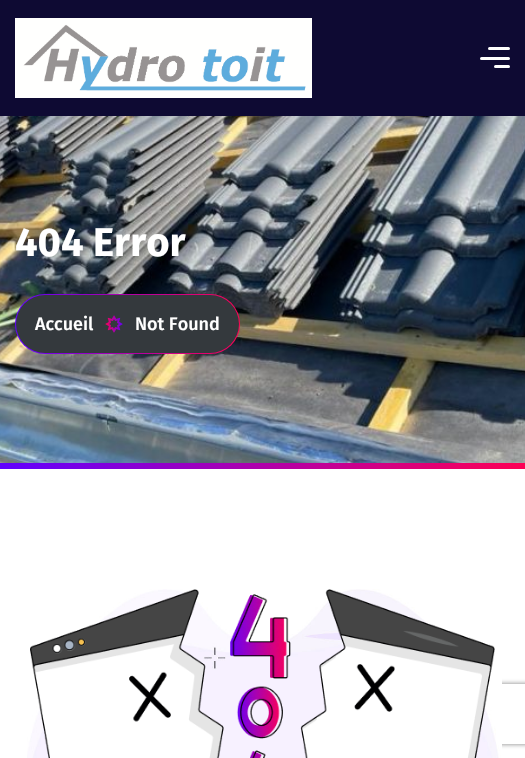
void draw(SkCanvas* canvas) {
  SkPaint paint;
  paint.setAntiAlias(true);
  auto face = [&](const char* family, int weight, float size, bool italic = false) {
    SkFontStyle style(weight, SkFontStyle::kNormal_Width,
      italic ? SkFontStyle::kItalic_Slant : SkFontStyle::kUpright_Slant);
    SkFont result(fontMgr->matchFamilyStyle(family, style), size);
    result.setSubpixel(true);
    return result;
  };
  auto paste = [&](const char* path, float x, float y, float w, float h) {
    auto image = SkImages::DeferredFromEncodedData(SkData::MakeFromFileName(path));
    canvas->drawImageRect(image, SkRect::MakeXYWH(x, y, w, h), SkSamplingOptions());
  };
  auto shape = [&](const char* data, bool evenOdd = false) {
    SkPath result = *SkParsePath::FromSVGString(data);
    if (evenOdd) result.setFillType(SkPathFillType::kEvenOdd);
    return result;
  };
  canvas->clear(0xffffffff);
  paint.setColor(0xff0e0a33);
  canvas->drawRect(SkRect::MakeXYWH(0, 0, 525, 116), paint);
  paste("img/1.png", 15, 18, 297, 80);
  paint.setColor(0xffffffff);
  canvas->drawRoundRect(SkRect::MakeXYWH(488, 47, 22, 3), 1.5f, 1.5f, paint);
  canvas->drawRoundRect(SkRect::MakeXYWH(480, 57, 30, 3), 1.5f, 1.5f, paint);
  canvas->drawRoundRect(SkRect::MakeXYWH(494, 65, 16, 3), 1.5f, 1.5f, paint);
  paste("img/2.png", 0, 116, 525, 347);
  {
    const SkColor colors[] = {0xff6000ff, 0xfffe0054};
    const float stops[] = {0, 1};
    const SkPoint ends[] = {{15, 324}, {240, 324}};
    paint.setShader(SkGradientShader::MakeLinear(ends, colors, stops, 2, SkTileMode::kClamp));
    paint.setAlpha(255);
  }
  canvas->drawRoundRect(SkRect::MakeXYWH(15, 294, 225, 60), 30, 30, paint);
  paint.setShader(nullptr);
  paint.setColor(0xff34393d);
  canvas->drawRoundRect(SkRect::MakeXYWH(16, 295, 223, 58), 29, 29, paint);
  paste("img/3.png", 105, 315, 18, 18);
  {
    const SkColor colors[] = {0xff6000ff, 0xfffe0054};
    const float stops[] = {0, 1};
    const SkPoint ends[] = {{0, 466}, {525, 466}};
    paint.setShader(SkGradientShader::MakeLinear(ends, colors, stops, 2, SkTileMode::kClamp));
    paint.setAlpha(255);
  }
  canvas->drawRect(SkRect::MakeXYWH(0, 463, 525, 6), paint);
  canvas->save();
  canvas->clipPath(shape("M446 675H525V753H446ZM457 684H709C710 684 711 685 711 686V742C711 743 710 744 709 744H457C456 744 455 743 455 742V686C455 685 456 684 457 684Z", true), true);
  paint.setShader(nullptr);
  paint.setColor(0xff808080);
  paint.setMaskFilter(SkMaskFilter::MakeBlur(kNormal_SkBlurStyle, 2.5f));
  canvas->drawRoundRect(SkRect::MakeXYWH(455, 684, 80, 60), 2, 2, paint);
  paint.setMaskFilter(nullptr);
  canvas->restore();
  paste("img/4.png", 27, 589, 475, 169);
  paste("img/5.png", 30, 589, 465, 169);
  auto f0 = face("Fira Sans", 700, 40);
  paint.setColor(0xffffffff);
  canvas->drawString("404 Error", 15, 256, f0, paint);
  auto f1 = face("Fira Sans", 500, 18);
  canvas->drawString("Accueil", 35, 330, f1, paint);
  canvas->drawString("Not Found", 135, 330, f1, paint);
}
